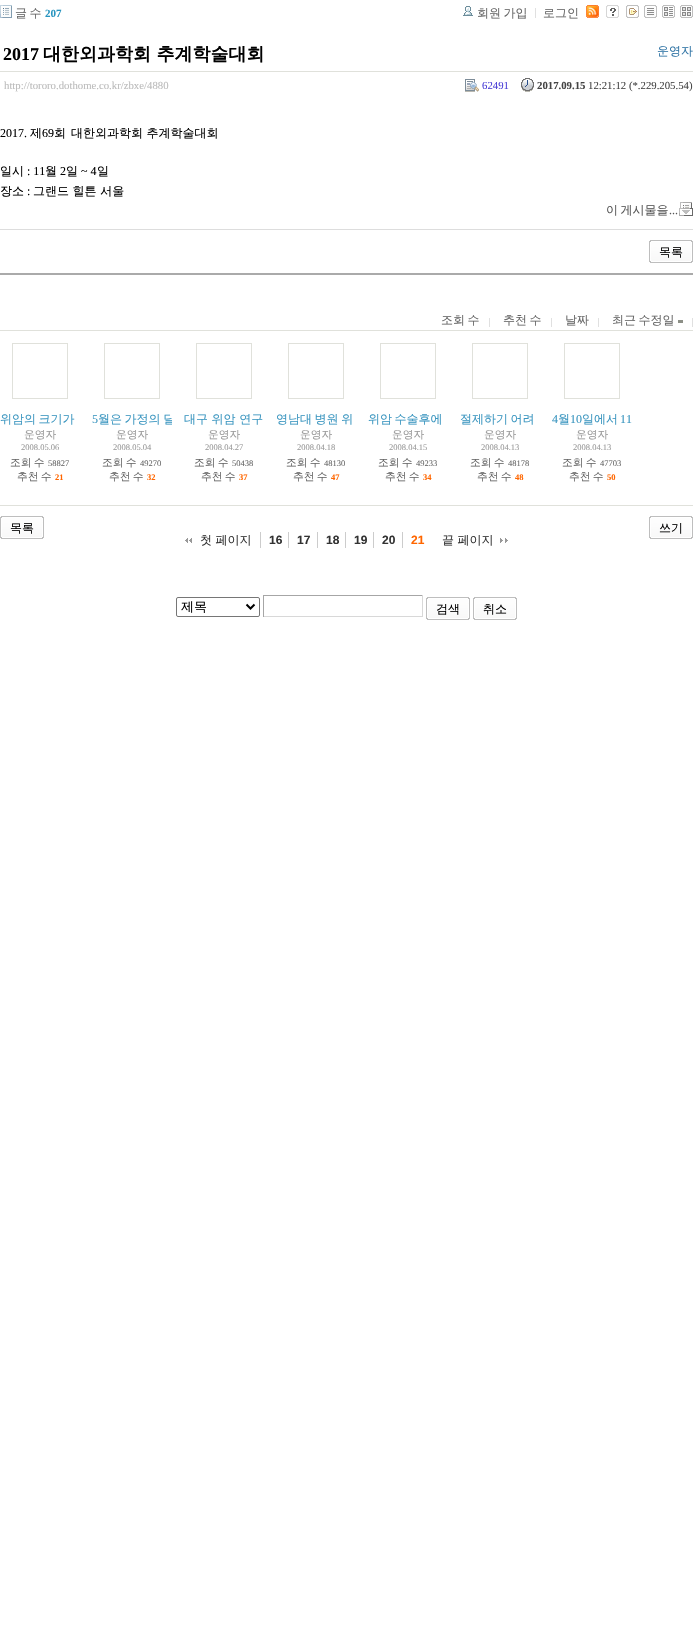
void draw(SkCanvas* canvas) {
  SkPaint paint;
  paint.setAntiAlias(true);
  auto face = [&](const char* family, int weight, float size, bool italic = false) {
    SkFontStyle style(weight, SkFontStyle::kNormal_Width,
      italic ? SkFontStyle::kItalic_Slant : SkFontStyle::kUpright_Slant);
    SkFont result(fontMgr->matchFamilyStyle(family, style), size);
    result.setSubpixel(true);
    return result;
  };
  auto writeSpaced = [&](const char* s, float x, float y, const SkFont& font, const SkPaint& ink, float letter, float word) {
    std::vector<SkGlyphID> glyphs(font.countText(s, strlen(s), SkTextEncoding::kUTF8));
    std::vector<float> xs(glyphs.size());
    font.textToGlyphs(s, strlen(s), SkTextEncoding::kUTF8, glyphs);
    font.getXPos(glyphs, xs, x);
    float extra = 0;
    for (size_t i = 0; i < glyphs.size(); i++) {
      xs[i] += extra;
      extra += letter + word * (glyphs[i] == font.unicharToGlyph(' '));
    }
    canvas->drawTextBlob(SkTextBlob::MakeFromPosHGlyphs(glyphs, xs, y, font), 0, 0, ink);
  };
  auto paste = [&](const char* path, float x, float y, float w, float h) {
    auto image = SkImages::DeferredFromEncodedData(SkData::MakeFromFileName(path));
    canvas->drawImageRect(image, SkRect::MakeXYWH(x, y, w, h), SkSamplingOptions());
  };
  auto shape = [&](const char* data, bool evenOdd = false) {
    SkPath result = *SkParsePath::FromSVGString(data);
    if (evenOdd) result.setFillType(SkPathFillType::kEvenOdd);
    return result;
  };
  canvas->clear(0xffffffff);
  paste("img/1.png", 0, 5, 12, 13);
  paste("img/2.png", 463, 6, 10, 10);
  paint.setColor(0xffe0e0e0);
  canvas->drawRect(SkRect::MakeXYWH(535, 8, 1, 10), paint);
  paste("img/3.png", 586, 5, 13, 13);
  paste("img/4.png", 606, 5, 13, 13);
  paste("img/5.png", 626, 5, 13, 13);
  paste("img/6.png", 644, 5, 13, 13);
  paste("img/7.png", 662, 5, 13, 13);
  paste("img/8.png", 680, 5, 13, 13);
  paint.setColor(0xffaaaaaa);
  canvas->drawRect(SkRect::MakeXYWH(0, 273, 693, 2), paint);
  paint.setColor(0xffe0e1db);
  canvas->drawRect(SkRect::MakeXYWH(0, 71, 693, 1), paint);
  paste("img/9.png", 465, 79, 14, 13);
  paste("img/10.png", 521, 78, 13, 14);
  paste("img/11.png", 679, 202, 14, 14);
  paint.setColor(0xffdddddd);
  canvas->drawRect(SkRect::MakeXYWH(0, 229, 693, 1), paint);
  paste("img/12.png", 649, 240, 42, 23);
  paste("img/13.png", 691, 240, 2, 23);
  {
    const struct { float x, y, w, h; SkColor color; } items[] = {
      {0, 330, 693, 1, 0xffe0e1db},
      {489, 318, 1, 9, 0xffe0e0e0},
      {551, 318, 1, 9, 0xffe0e0e0},
      {598, 318, 1, 9, 0xffe0e0e0},
      {692, 318, 1, 9, 0xffe0e0e0},
      {678, 320, 5, 3, 0xff8c8f86},
      {0, 505, 693, 1, 0xffe0e1db},
    };
    for (auto [x, y, w, h, color] : items) {
      paint.setColor(color);
      canvas->drawRect(SkRect::MakeXYWH(x, y, w, h), paint);
    }
  }
  paint.setStroke(true);
  paint.setStrokeWidth(1);
  canvas->drawRect(SkRect::MakeXYWH(12.5f, 343.5f, 55, 55), paint);
  canvas->drawRect(SkRect::MakeXYWH(104.5f, 343.5f, 55, 55), paint);
  canvas->drawRect(SkRect::MakeXYWH(196.5f, 343.5f, 55, 55), paint);
  canvas->drawRect(SkRect::MakeXYWH(288.5f, 343.5f, 55, 55), paint);
  canvas->drawRect(SkRect::MakeXYWH(380.5f, 343.5f, 55, 55), paint);
  canvas->drawRect(SkRect::MakeXYWH(472.5f, 343.5f, 55, 55), paint);
  canvas->drawRect(SkRect::MakeXYWH(564.5f, 343.5f, 55, 55), paint);
  paste("img/12.png", 0, 516, 42, 23);
  paste("img/13.png", 42, 516, 2, 23);
  paste("img/12.png", 649, 516, 42, 23);
  paste("img/13.png", 691, 516, 2, 23);
  paste("img/14.png", 185, 538, 7, 5);
  paint.setStroke(false);
  {
    const struct { float x, y, w, h; SkColor color; } items[] = {
      {260, 532, 1, 16, 0xffcccccc},
      {288, 532, 1, 16, 0xffcccccc},
      {317, 532, 1, 16, 0xffcccccc},
      {345, 532, 1, 16, 0xffcccccc},
      {373, 532, 1, 16, 0xffcccccc},
      {402, 532, 1, 16, 0xffcccccc},
    };
    for (auto [x, y, w, h, color] : items) {
      paint.setColor(color);
      canvas->drawRect(SkRect::MakeXYWH(x, y, w, h), paint);
    }
  }
  paste("img/15.png", 500, 538, 8, 5);
  paint.setStroke(true);
  paint.setColor(0xff767676);
  canvas->drawRoundRect(SkRect::MakeXYWH(176.5f, 597.5f, 83, 19), 1.5f, 1.5f, paint);
  paint.setStrokeWidth(2);
  paint.setColor(0xff000000);
  canvas->drawPath(shape("M246.5 604.5L250.5 608.5L254.5 604.5"), paint);
  paint.setStroke(false);
  {
    const struct { float x, y, w, h; SkColor color; } items[] = {
      {263, 595, 160, 1, 0xffa6a6a6},
      {422, 595, 1, 22, 0xffd8d8d8},
      {263, 616, 160, 1, 0xffd8d8d8},
      {263, 595, 1, 22, 0xffa6a6a6},
    };
    for (auto [x, y, w, h, color] : items) {
      paint.setColor(color);
      canvas->drawRect(SkRect::MakeXYWH(x, y, w, h), paint);
    }
  }
  paste("img/12.png", 426, 597, 42, 23);
  paste("img/13.png", 468, 597, 2, 23);
  paste("img/12.png", 473, 597, 42, 23);
  paste("img/13.png", 515, 597, 2, 23);
  auto f0 = face("WenQuanYi Zen Hei", 500, 12);
  paint.setColor(0xff666666);
  writeSpaced("글 수", 15, 17, f0, paint, 0, -1);
  auto f1 = face("Liberation Serif", 700, 11);
  paint.setColor(0xff2895c0);
  canvas->drawString("207", 45, 17, f1, paint);
  paint.setColor(0xff666666);
  writeSpaced("회원 가입", 477, 17, f0, paint, 0, -1);
  canvas->drawString("로그인", 543, 17, f0, paint);
  auto f2 = face("Liberation Serif", 700, 18);
  paint.setColor(0xff000000);
  canvas->drawString("2017", 3, 60, f2, paint);
  auto f3 = face("WenQuanYi Zen Hei", 700, 18);
  canvas->drawString("대한외과학회 추계학술대회", 43, 60, f3, paint);
  paint.setColor(0xff3074a5);
  canvas->drawString("운영자", 657, 55, f0, paint);
  auto f4 = face("Liberation Serif", 400, 10.75f);
  paint.setColor(0xffbbbbbb);
  canvas->drawString("http://tororo.dothome.co.kr/zbxe/4880", 4, 89, f4, paint);
  paint.setColor(0xff4a3fd7);
  canvas->drawString("62491", 482, 89, f4, paint);
  auto f5 = face("Liberation Serif", 700, 10.75f);
  paint.setColor(0xff444444);
  canvas->drawString("2017.09.15", 537, 89, f5, paint);
  canvas->drawString("12:21:12 (*.229.205.54)", 588, 89, f4, paint);
  auto f6 = face("Liberation Serif", 400, 12);
  paint.setColor(0xff000000);
  canvas->drawString("2017.", 0, 137, f6, paint);
  canvas->drawString("제", 30, 137, f0, paint);
  canvas->drawString("69", 42, 137, f6, paint);
  {
    const struct { const char* s; float x, y; } items[] = {
      {"회", 54, 137},
      {"대한외과학회 추계학술대회", 71, 137},
      {"일시", 0, 175},
    };
    for (auto [s, x, y] : items) {
      canvas->drawString(s, x, y, f0, paint);
    }
  }
  canvas->drawString(": 11", 27, 175, f6, paint);
  canvas->drawString("월", 45, 175, f0, paint);
  canvas->drawString("2", 60, 175, f6, paint);
  canvas->drawString("일", 66, 175, f0, paint);
  canvas->drawString("~ 4", 81, 175, f6, paint);
  canvas->drawString("일", 97, 175, f0, paint);
  canvas->drawString("장소", 0, 195, f0, paint);
  canvas->drawString(":", 27, 195, f6, paint);
  canvas->drawString("그랜드 힐튼 서울", 33, 195, f0, paint);
  paint.setColor(0xff555555);
  writeSpaced("이 게시물을", 606, 214, f0, paint, 0, -1);
  canvas->drawString("...", 669, 214, f6, paint);
  paint.setColor(0xff000000);
  canvas->drawString("목록", 659, 256, f0, paint);
  paint.setColor(0xff666666);
  writeSpaced("조회 수", 441, 324, f0, paint, 0, -1);
  writeSpaced("추천 수", 503, 324, f0, paint, 0, -1);
  canvas->drawString("날짜", 565, 324, f0, paint);
  writeSpaced("최근 수정일", 612, 324, f0, paint, 0, -1);
  paint.setColor(0xff3b96c0);
  writeSpaced("위암의 크기가", 0, 423, f0, paint, 0, -1);
  auto f7 = face("WenQuanYi Zen Hei", 500, 10.75f);
  paint.setColor(0xff999999);
  canvas->drawString("운영자", 24, 438, f7, paint);
  auto f8 = face("Liberation Serif", 400, 8.5f);
  canvas->drawString("2008.05.06", 21, 450, f8, paint);
  paint.setColor(0xff666666);
  writeSpaced("조회 수", 10, 466, f7, paint, 0, -1);
  canvas->drawString("58827", 48, 466, f8, paint);
  writeSpaced("추천 수", 17, 480, f7, paint, 0, -1);
  auto f9 = face("Liberation Serif", 700, 8.5f);
  paint.setColor(0xffff6600);
  canvas->drawString("21", 55, 480, f9, paint);
  paint.setColor(0xff3b96c0);
  canvas->drawString("5", 92, 423, f6, paint);
  canvas->save();
  canvas->clipRect(SkRect::MakeXYWH(92, 411, 80, 43));
  writeSpaced("월은 가정의 달", 98, 423, f0, paint, 0, -1);
  canvas->restore();
  paint.setColor(0xff999999);
  canvas->drawString("운영자", 116, 438, f7, paint);
  canvas->drawString("2008.05.04", 113, 450, f8, paint);
  paint.setColor(0xff666666);
  writeSpaced("조회 수", 102, 466, f7, paint, 0, -1);
  canvas->drawString("49270", 140, 466, f8, paint);
  writeSpaced("추천 수", 109, 480, f7, paint, 0, -1);
  paint.setColor(0xffff6600);
  canvas->drawString("32", 147, 480, f9, paint);
  paint.setColor(0xff3b96c0);
  canvas->drawString("대구 위암 연구", 184, 423, f0, paint);
  paint.setColor(0xff999999);
  canvas->drawString("운영자", 208, 438, f7, paint);
  canvas->drawString("2008.04.27", 205, 450, f8, paint);
  paint.setColor(0xff666666);
  writeSpaced("조회 수", 194, 466, f7, paint, 0, -1);
  canvas->drawString("50438", 232, 466, f8, paint);
  writeSpaced("추천 수", 201, 480, f7, paint, 0, -1);
  paint.setColor(0xffff6600);
  canvas->drawString("37", 239, 480, f9, paint);
  paint.setColor(0xff3b96c0);
  writeSpaced("영남대 병원 위", 276, 423, f0, paint, 0, -1);
  paint.setColor(0xff999999);
  canvas->drawString("운영자", 300, 438, f7, paint);
  canvas->drawString("2008.04.18", 297, 450, f8, paint);
  paint.setColor(0xff666666);
  writeSpaced("조회 수", 286, 466, f7, paint, 0, -1);
  canvas->drawString("48130", 324, 466, f8, paint);
  writeSpaced("추천 수", 293, 480, f7, paint, 0, -1);
  paint.setColor(0xffff6600);
  canvas->drawString("47", 331, 480, f9, paint);
  paint.setColor(0xff3b96c0);
  writeSpaced("위암 수술후에", 368, 423, f0, paint, 0, -1);
  paint.setColor(0xff999999);
  canvas->drawString("운영자", 392, 438, f7, paint);
  canvas->drawString("2008.04.15", 389, 450, f8, paint);
  paint.setColor(0xff666666);
  writeSpaced("조회 수", 378, 466, f7, paint, 0, -1);
  canvas->drawString("49233", 416, 466, f8, paint);
  writeSpaced("추천 수", 385, 480, f7, paint, 0, -1);
  paint.setColor(0xffff6600);
  canvas->drawString("34", 423, 480, f9, paint);
  paint.setColor(0xff3b96c0);
  writeSpaced("절제하기 어려", 460, 423, f0, paint, 0, -1);
  paint.setColor(0xff999999);
  canvas->drawString("운영자", 484, 438, f7, paint);
  canvas->drawString("2008.04.13", 481, 450, f8, paint);
  paint.setColor(0xff666666);
  writeSpaced("조회 수", 470, 466, f7, paint, 0, -1);
  canvas->drawString("48178", 508, 466, f8, paint);
  writeSpaced("추천 수", 477, 480, f7, paint, 0, -1);
  paint.setColor(0xffff6600);
  canvas->drawString("48", 515, 480, f9, paint);
  paint.setColor(0xff3b96c0);
  canvas->drawString("4", 552, 423, f6, paint);
  canvas->drawString("월", 558, 423, f0, paint);
  canvas->drawString("10", 570, 423, f6, paint);
  canvas->drawString("일에서", 582, 423, f0, paint);
  canvas->drawString("11", 620, 423, f6, paint);
  paint.setColor(0xff999999);
  canvas->drawString("운영자", 576, 438, f7, paint);
  canvas->drawString("2008.04.13", 573, 450, f8, paint);
  paint.setColor(0xff666666);
  writeSpaced("조회 수", 562, 466, f7, paint, 0, -1);
  canvas->drawString("47703", 600, 466, f8, paint);
  writeSpaced("추천 수", 569, 480, f7, paint, 0, -1);
  paint.setColor(0xffff6600);
  canvas->drawString("50", 607, 480, f9, paint);
  paint.setColor(0xff000000);
  canvas->drawString("목록", 10, 532, f0, paint);
  canvas->drawString("쓰기", 659, 532, f0, paint);
  paint.setColor(0xff333333);
  canvas->drawString("첫 페이지", 200, 544, f0, paint);
  auto f10 = face("Liberation Sans", 700, 12);
  {
    const struct { const char* s; float x, y; } items[] = {
      {"16", 269, 544},
      {"17", 297, 544},
      {"18", 326, 544},
      {"19", 354, 544},
      {"20", 382, 544},
    };
    for (auto [s, x, y] : items) {
      canvas->drawString(s, x, y, f10, paint);
    }
  }
  paint.setColor(0xffff6600);
  canvas->drawString("21", 411, 544, f10, paint);
  paint.setColor(0xff333333);
  canvas->drawString("끝 페이지", 442, 544, f0, paint);
  auto f11 = face("WenQuanYi Zen Hei", 500, 13);
  paint.setColor(0xff000000);
  canvas->drawString("제목", 181, 611, f11, paint);
  canvas->drawString("검색", 436, 613, f0, paint);
  canvas->drawString("취소", 483, 613, f0, paint);
}
